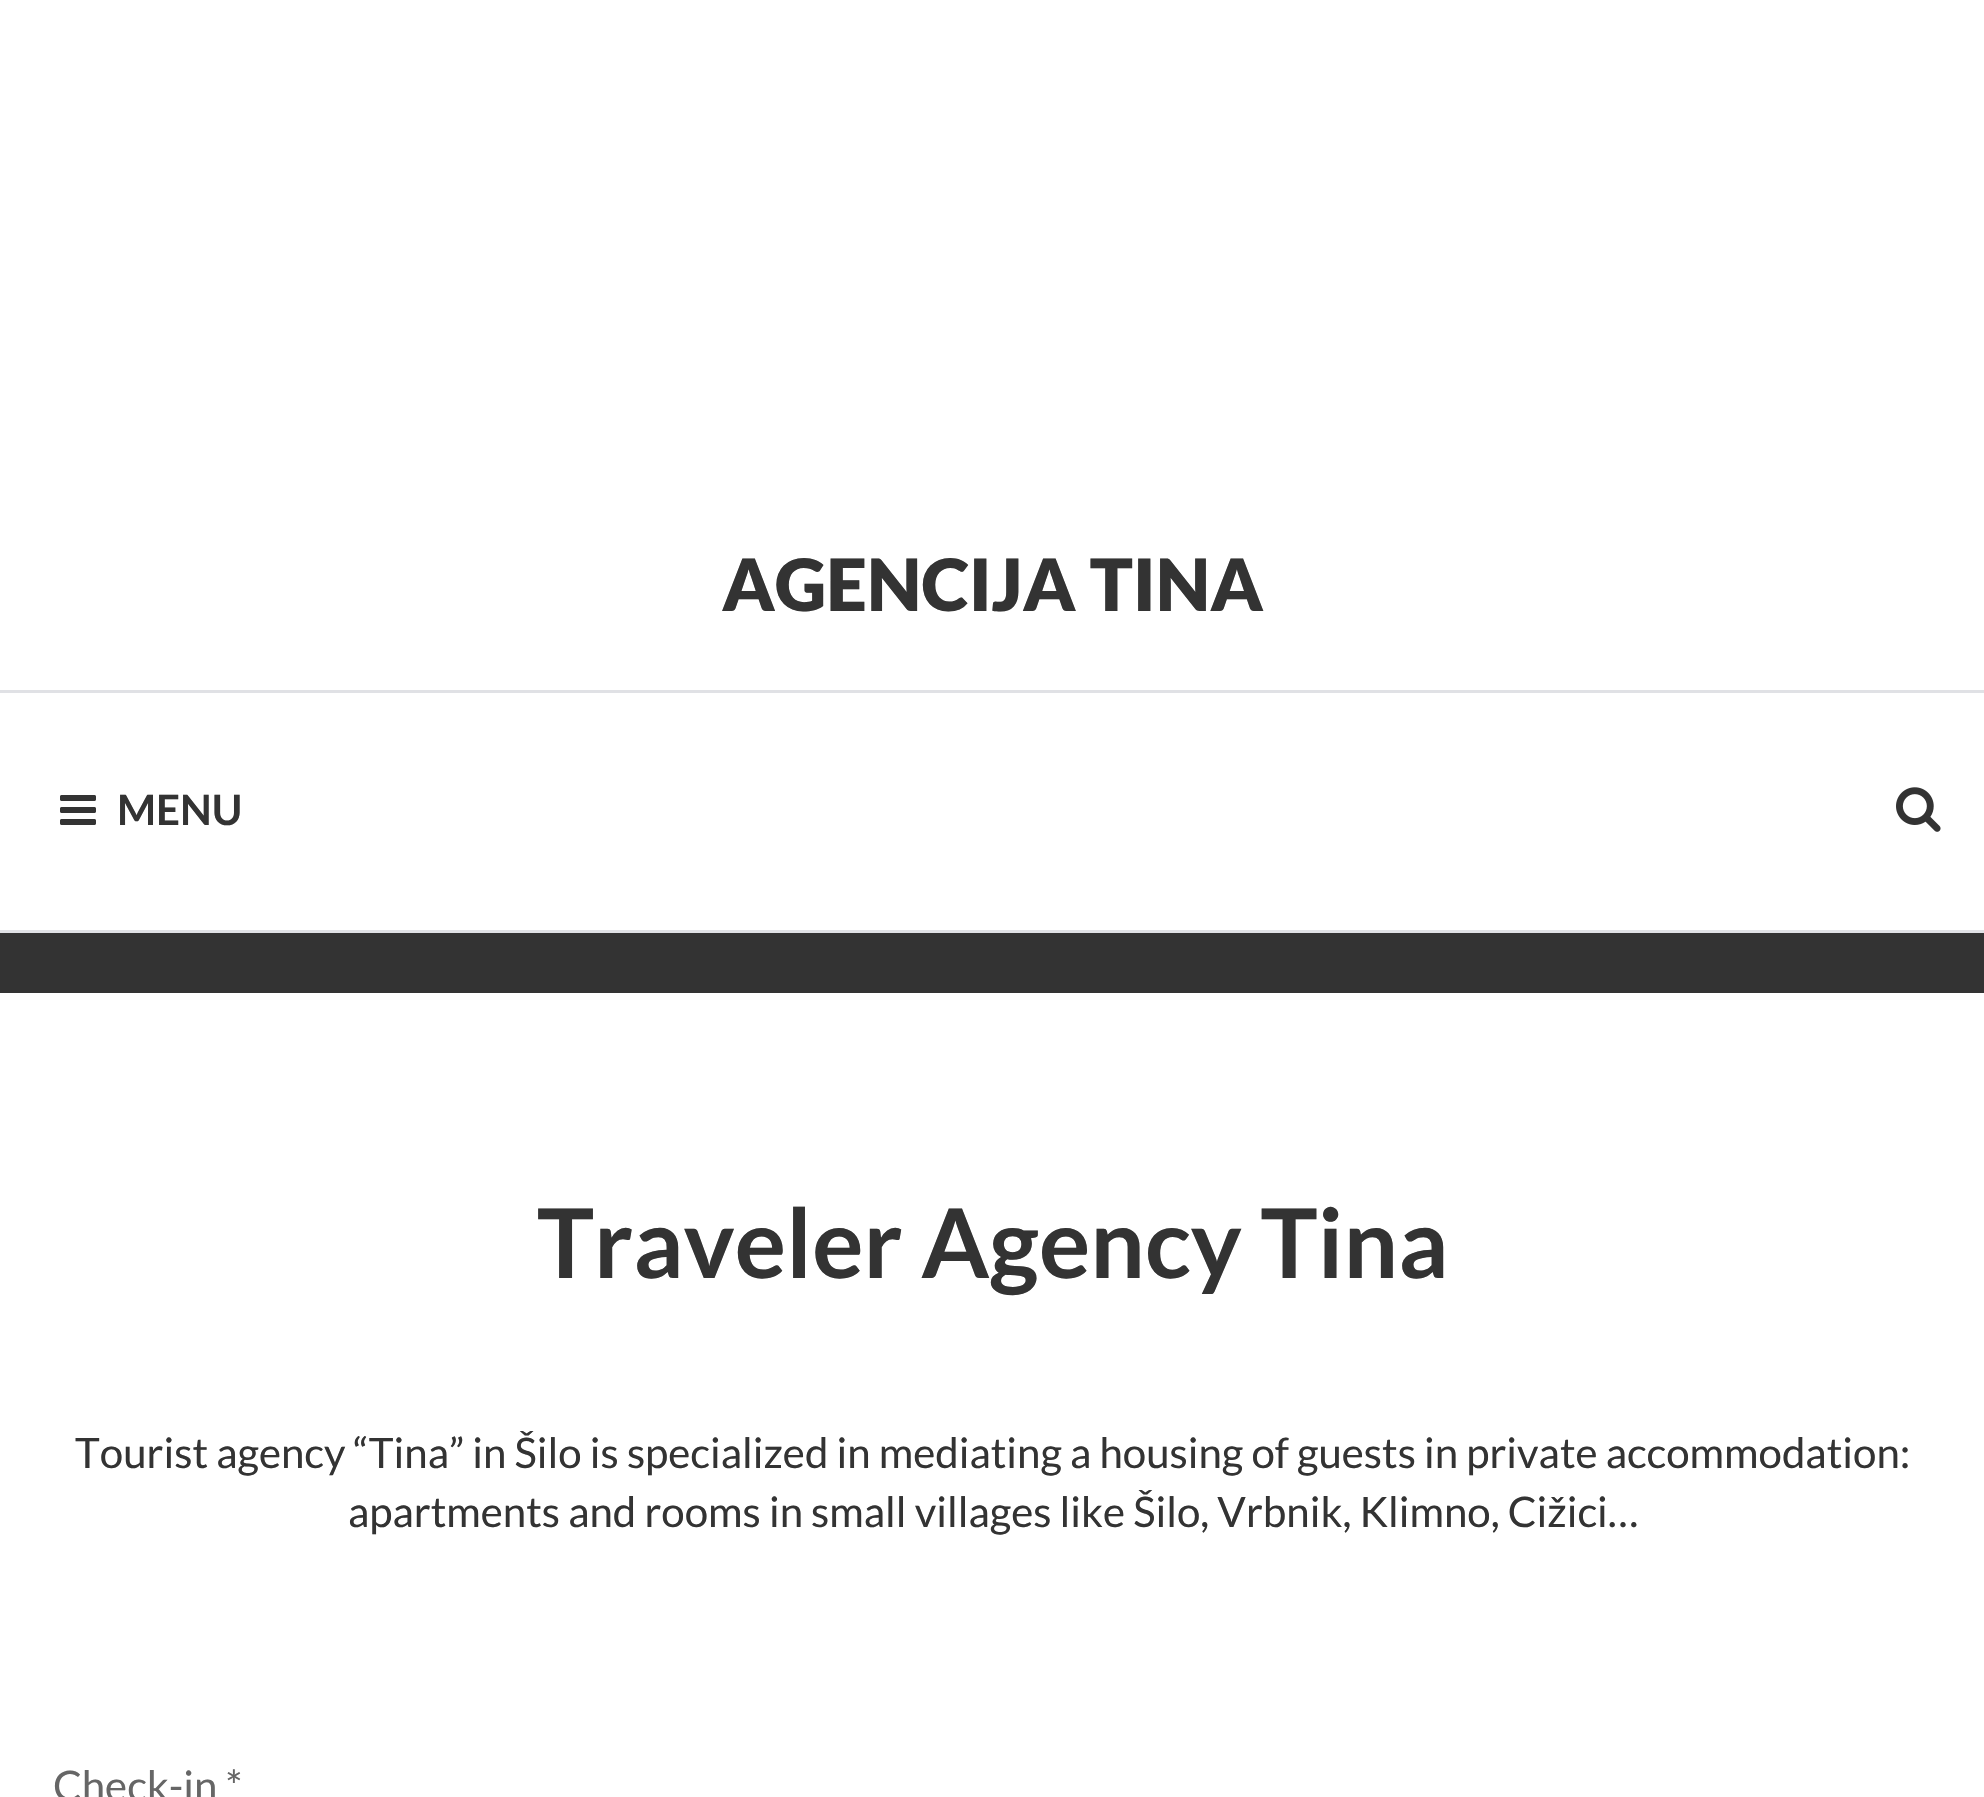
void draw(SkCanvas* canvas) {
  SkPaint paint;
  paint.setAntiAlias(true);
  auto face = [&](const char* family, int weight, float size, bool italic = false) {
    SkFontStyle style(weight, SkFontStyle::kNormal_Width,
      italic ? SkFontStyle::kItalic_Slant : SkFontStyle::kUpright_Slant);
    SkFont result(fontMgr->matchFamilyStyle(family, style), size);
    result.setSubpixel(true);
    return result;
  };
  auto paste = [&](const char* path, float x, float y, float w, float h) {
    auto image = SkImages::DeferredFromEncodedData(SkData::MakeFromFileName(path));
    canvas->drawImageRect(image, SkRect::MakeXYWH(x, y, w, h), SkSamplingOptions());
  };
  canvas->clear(0xffffffff);
  paint.setColor(0xffe0e1e5);
  canvas->drawRect(SkRect::MakeXYWH(0, 690, 1984, 3), paint);
  canvas->drawRect(SkRect::MakeXYWH(0, 930, 1984, 3), paint);
  paste("img/1.png", 60, 795, 36, 30);
  paste("img/2.png", 1896, 787, 45, 45);
  paint.setColor(0xff333333);
  canvas->drawRect(SkRect::MakeXYWH(0, 933, 1984, 60), paint);
  auto f0 = face("Lato", 900, 72);
  canvas->drawString("AGENCIJA TINA", 722, 611, f0, paint);
  auto f1 = face("Lato", 700, 42);
  canvas->drawString("MENU", 117, 825, f1, paint);
  auto f2 = face("Lato", 700, 96);
  canvas->drawString("Traveler Agency Tina", 537, 1278, f2, paint);
  auto f3 = face("Lato", 400, 42);
  canvas->drawString("Tourist agency “Tina” in Šilo is specialized in mediating a housing of guests in private accommodation:", 75, 1468, f3, paint);
  canvas->drawString("apartments and rooms in small villages like Šilo, Vrbnik, Klimno, Cižici…", 348, 1527, f3, paint);
  paint.setColor(0xff666666);
  canvas->drawString("Check-in *", 53, 1801, f3, paint);
}
